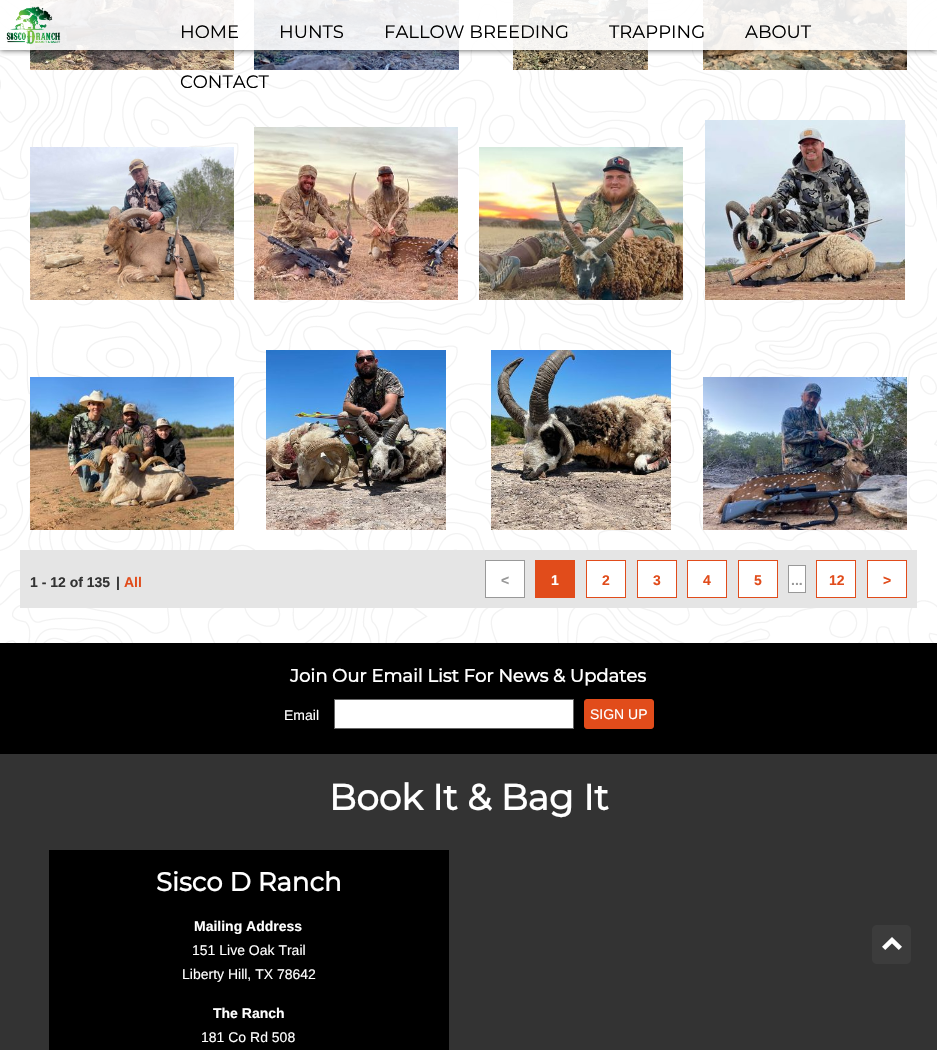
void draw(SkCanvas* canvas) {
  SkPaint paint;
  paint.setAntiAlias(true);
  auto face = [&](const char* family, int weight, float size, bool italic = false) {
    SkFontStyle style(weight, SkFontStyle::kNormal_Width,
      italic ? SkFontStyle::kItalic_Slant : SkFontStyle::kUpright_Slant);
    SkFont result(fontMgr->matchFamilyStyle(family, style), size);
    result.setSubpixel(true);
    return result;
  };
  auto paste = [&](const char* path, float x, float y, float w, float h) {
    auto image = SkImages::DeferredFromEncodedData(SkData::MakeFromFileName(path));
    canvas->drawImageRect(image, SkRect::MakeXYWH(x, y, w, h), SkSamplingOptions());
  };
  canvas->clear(0xffffffff);
  paste("img/2.png", 0, 0, 937, 643);
  paste("img/3.png", 30, 0, 204, 70);
  paste("img/4.png", 254, 0, 205, 70);
  paste("img/5.png", 513, 0, 135, 70);
  paste("img/6.png", 703, 0, 204, 70);
  canvas->save();
  canvas->clipRect(SkRect::MakeXYWH(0, 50, 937, 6));
  paint.setColor(0xb3000000);
  paint.setMaskFilter(SkMaskFilter::MakeBlur(kNormal_SkBlurStyle, 3));
  canvas->drawRect(SkRect::MakeXYWH(0, 0, 937, 50), paint);
  paint.setMaskFilter(nullptr);
  canvas->restore();
  paint.setColor(0xe6ffffff);
  canvas->drawRect(SkRect::MakeXYWH(0, 0, 937, 50), paint);
  paste("img/1.png", 6, 6, 55, 38);
  paste("img/7.png", 30, 147, 204, 153);
  paste("img/8.png", 254, 127, 204, 173);
  paste("img/9.png", 479, 147, 204, 153);
  paste("img/10.png", 705, 120, 200, 180);
  paste("img/11.png", 30, 377, 204, 153);
  paste("img/12.png", 266, 350, 180, 180);
  paste("img/13.png", 491, 350, 180, 180);
  paste("img/14.png", 703, 377, 204, 153);
  paint.setColor(0xffe5e5e5);
  canvas->drawRect(SkRect::MakeXYWH(20, 550, 897, 58), paint);
  paint.setColor(0xffffffff);
  canvas->drawRect(SkRect::MakeXYWH(485.5f, 560.5f, 39, 37), paint);
  paint.setStroke(true);
  paint.setStrokeWidth(1);
  paint.setColor(0xff999999);
  canvas->drawRect(SkRect::MakeXYWH(485.5f, 560.5f, 39, 37), paint);
  paint.setStroke(false);
  paint.setColor(0xffe14c1b);
  canvas->drawRect(SkRect::MakeXYWH(535, 560, 40, 38), paint);
  paint.setColor(0xffffffff);
  canvas->drawRect(SkRect::MakeXYWH(586.5f, 560.5f, 39, 37), paint);
  paint.setStroke(true);
  paint.setColor(0xffe14c1b);
  canvas->drawRect(SkRect::MakeXYWH(586.5f, 560.5f, 39, 37), paint);
  paint.setStroke(false);
  paint.setColor(0xffffffff);
  canvas->drawRect(SkRect::MakeXYWH(637.5f, 560.5f, 39, 37), paint);
  paint.setStroke(true);
  paint.setColor(0xffe14c1b);
  canvas->drawRect(SkRect::MakeXYWH(637.5f, 560.5f, 39, 37), paint);
  paint.setStroke(false);
  paint.setColor(0xffffffff);
  canvas->drawRect(SkRect::MakeXYWH(687.5f, 560.5f, 39, 37), paint);
  paint.setStroke(true);
  paint.setColor(0xffe14c1b);
  canvas->drawRect(SkRect::MakeXYWH(687.5f, 560.5f, 39, 37), paint);
  paint.setStroke(false);
  paint.setColor(0xffffffff);
  canvas->drawRect(SkRect::MakeXYWH(738.5f, 560.5f, 39, 37), paint);
  paint.setStroke(true);
  paint.setColor(0xffe14c1b);
  canvas->drawRect(SkRect::MakeXYWH(738.5f, 560.5f, 39, 37), paint);
  paint.setStroke(false);
  paint.setColor(0xffffffff);
  canvas->drawRect(SkRect::MakeXYWH(788.5f, 565.5f, 17, 27), paint);
  paint.setStroke(true);
  paint.setColor(0xff999999);
  canvas->drawRect(SkRect::MakeXYWH(788.5f, 565.5f, 17, 27), paint);
  paint.setStroke(false);
  paint.setColor(0xffffffff);
  canvas->drawRect(SkRect::MakeXYWH(816.5f, 560.5f, 39, 37), paint);
  paint.setStroke(true);
  paint.setColor(0xffe14c1b);
  canvas->drawRect(SkRect::MakeXYWH(816.5f, 560.5f, 39, 37), paint);
  paint.setStroke(false);
  paint.setColor(0xffffffff);
  canvas->drawRect(SkRect::MakeXYWH(867.5f, 560.5f, 39, 37), paint);
  paint.setStroke(true);
  paint.setColor(0xffe14c1b);
  canvas->drawRect(SkRect::MakeXYWH(867.5f, 560.5f, 39, 37), paint);
  paint.setStroke(false);
  paint.setColor(0xff333333);
  canvas->drawRect(SkRect::MakeXYWH(0, 754, 937, 296), paint);
  paint.setColor(0xff000000);
  canvas->drawRect(SkRect::MakeXYWH(0, 643, 937, 111), paint);
  paint.setColor(0xffffffff);
  canvas->drawRect(SkRect::MakeXYWH(334.5f, 699.5f, 239, 29), paint);
  paint.setStroke(true);
  paint.setColor(0xff666666);
  canvas->drawRect(SkRect::MakeXYWH(334.5f, 699.5f, 239, 29), paint);
  paint.setStroke(false);
  paint.setColor(0xffe14c1b);
  canvas->drawRoundRect(SkRect::MakeXYWH(584.5f, 699.5f, 69, 29), 2.5f, 2.5f, paint);
  paint.setStroke(true);
  canvas->drawRoundRect(SkRect::MakeXYWH(584.5f, 699.5f, 69, 29), 2.5f, 2.5f, paint);
  paint.setStroke(false);
  paint.setColor(0xff000000);
  canvas->drawRect(SkRect::MakeXYWH(49, 850, 400, 200), paint);
  paste("img/15.png", 872, 925, 39, 39);
  auto f0 = face("Montserrat", 100, 18);
  {
    const struct { const char* s; float x, y; } items[] = {
      {"HOME", 180, 38},
      {"HUNTS", 279, 38},
      {"FALLOW BREEDING", 384, 38},
      {"TRAPPING", 609, 38},
      {"ABOUT", 745, 38},
      {"CONTACT", 180, 88},
    };
    for (auto [s, x, y] : items) {
      canvas->drawString(s, x, y, f0, paint);
    }
  }
  auto f1 = face("Liberation Sans", 700, 14);
  paint.setColor(0xff333333);
  canvas->drawString("1 - 12 of 135", 30, 587, f1, paint);
  canvas->drawString("|", 116, 587, f1, paint);
  paint.setColor(0xffe14c1b);
  canvas->drawString("All", 124, 587, f1, paint);
  paint.setColor(0xff999999);
  canvas->drawString("<", 501, 585, f1, paint);
  paint.setColor(0xffffffff);
  canvas->drawString("1", 551, 585, f1, paint);
  paint.setColor(0xffe14c1b);
  {
    const struct { const char* s; float x, y; } items[] = {
      {"2", 602, 585},
      {"3", 653, 585},
      {"4", 703, 585},
      {"5", 754, 585},
    };
    for (auto [s, x, y] : items) {
      canvas->drawString(s, x, y, f1, paint);
    }
  }
  paint.setColor(0xff999999);
  canvas->drawString("...", 791, 585, f1, paint);
  paint.setColor(0xffe14c1b);
  canvas->drawString("12", 829, 585, f1, paint);
  canvas->drawString(">", 883, 585, f1, paint);
  auto f2 = face("Montserrat", 700, 18);
  paint.setColor(0xffffffff);
  canvas->drawString("Join Our Email List For News & Updates", 290, 682, f2, paint);
  auto f3 = face("Liberation Sans", 400, 14);
  canvas->drawString("Email", 284, 720, f3, paint);
  canvas->drawString("SIGN UP", 590, 719, f3, paint);
  auto f4 = face("Montserrat", 700, 36);
  canvas->drawString("Book It & Bag It", 329, 810, f4, paint);
  auto f5 = face("Montserrat", 700, 26);
  canvas->drawString("Sisco D Ranch", 156, 891, f5, paint);
  canvas->drawString("Mailing Address", 194, 931, f1, paint);
  canvas->drawString("151 Live Oak Trail", 192, 955, f3, paint);
  canvas->drawString("Liberty Hill, TX 78642", 182, 979, f3, paint);
  canvas->drawString("The Ranch", 213, 1018, f1, paint);
  canvas->drawString("181 Co Rd 508", 201, 1042, f3, paint);
}
